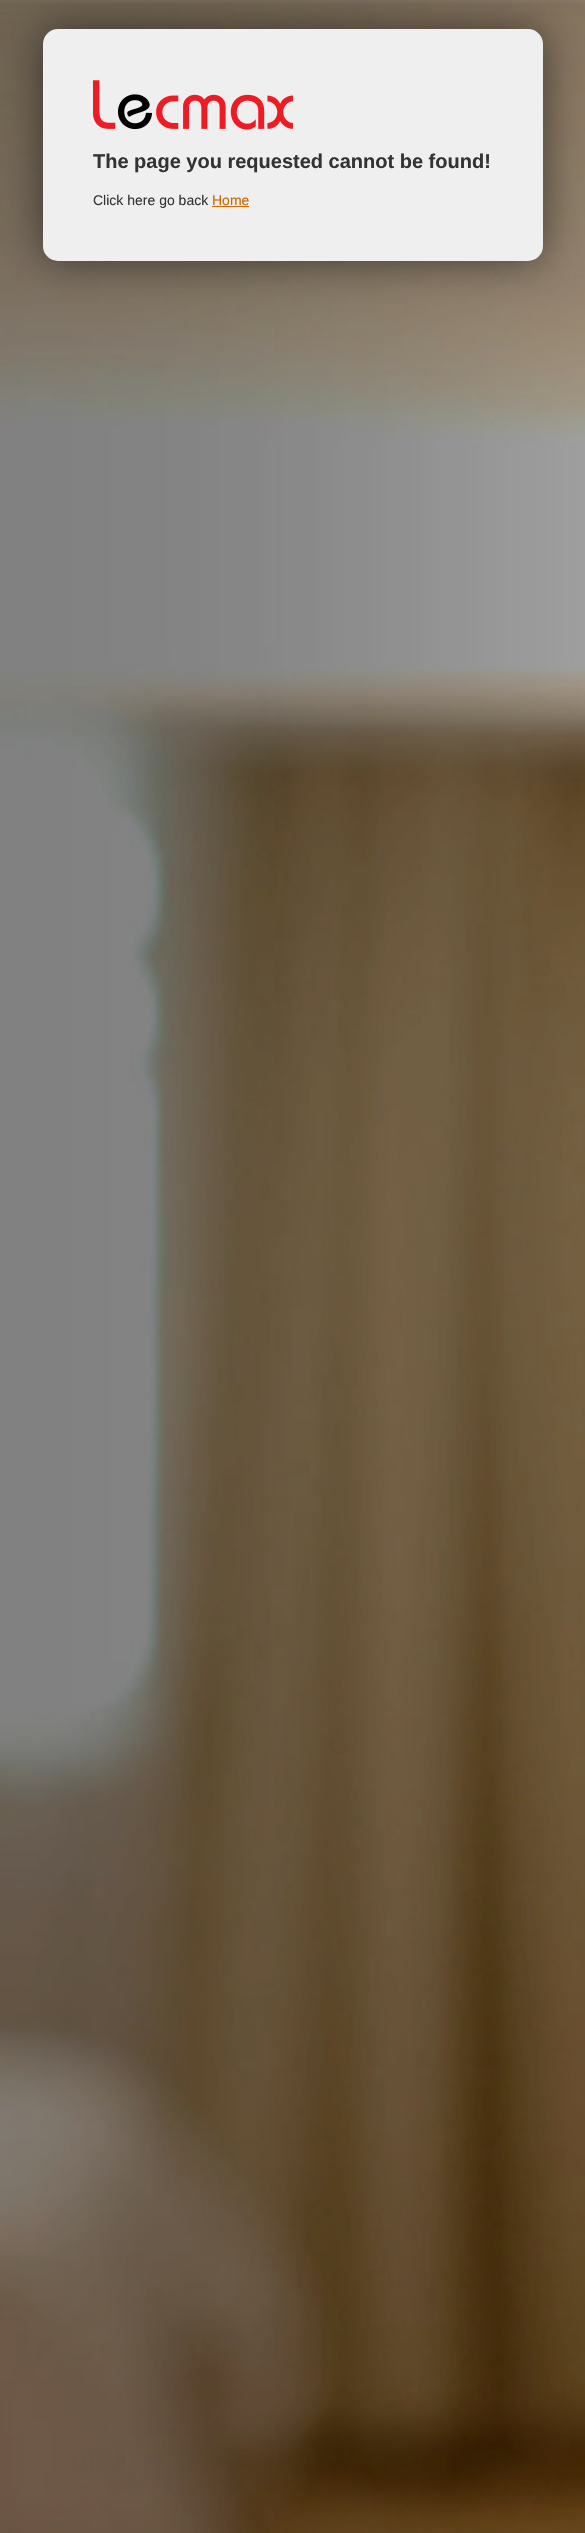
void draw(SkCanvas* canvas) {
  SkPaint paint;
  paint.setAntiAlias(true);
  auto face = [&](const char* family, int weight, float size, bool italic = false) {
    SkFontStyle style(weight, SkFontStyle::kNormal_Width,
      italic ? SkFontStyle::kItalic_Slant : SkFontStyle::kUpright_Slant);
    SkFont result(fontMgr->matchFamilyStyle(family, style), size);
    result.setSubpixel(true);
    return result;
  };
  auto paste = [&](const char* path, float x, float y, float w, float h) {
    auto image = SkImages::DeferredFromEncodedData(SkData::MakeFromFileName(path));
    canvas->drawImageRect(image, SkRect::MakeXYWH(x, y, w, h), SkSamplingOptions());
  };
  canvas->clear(0xffffffff);
  paste("img/1.png", 0, 0, 585, 2533);
  paint.setColor(0x80000000);
  paint.setMaskFilter(SkMaskFilter::MakeBlur(kNormal_SkBlurStyle, 20));
  canvas->drawRoundRect(SkRect::MakeXYWH(43, 29, 500, 232), 15, 15, paint);
  paint.setMaskFilter(nullptr);
  paint.setColor(0xffefefef);
  canvas->drawRoundRect(SkRect::MakeXYWH(43, 29, 500, 232), 15, 15, paint);
  paste("img/2.png", 93, 80, 200, 50);
  paint.setColor(0xffcc6600);
  canvas->drawRect(SkRect::MakeXYWH(212, 206, 37, 1), paint);
  auto f0 = face("Liberation Sans", 700, 20);
  paint.setColor(0xff333333);
  canvas->drawString("The page you requested cannot be found!", 93, 168, f0, paint);
  auto f1 = face("Liberation Sans", 400, 14);
  canvas->drawString("Click here go back", 93, 205, f1, paint);
  paint.setColor(0xffcc6600);
  canvas->drawString("Home", 212, 205, f1, paint);
}
